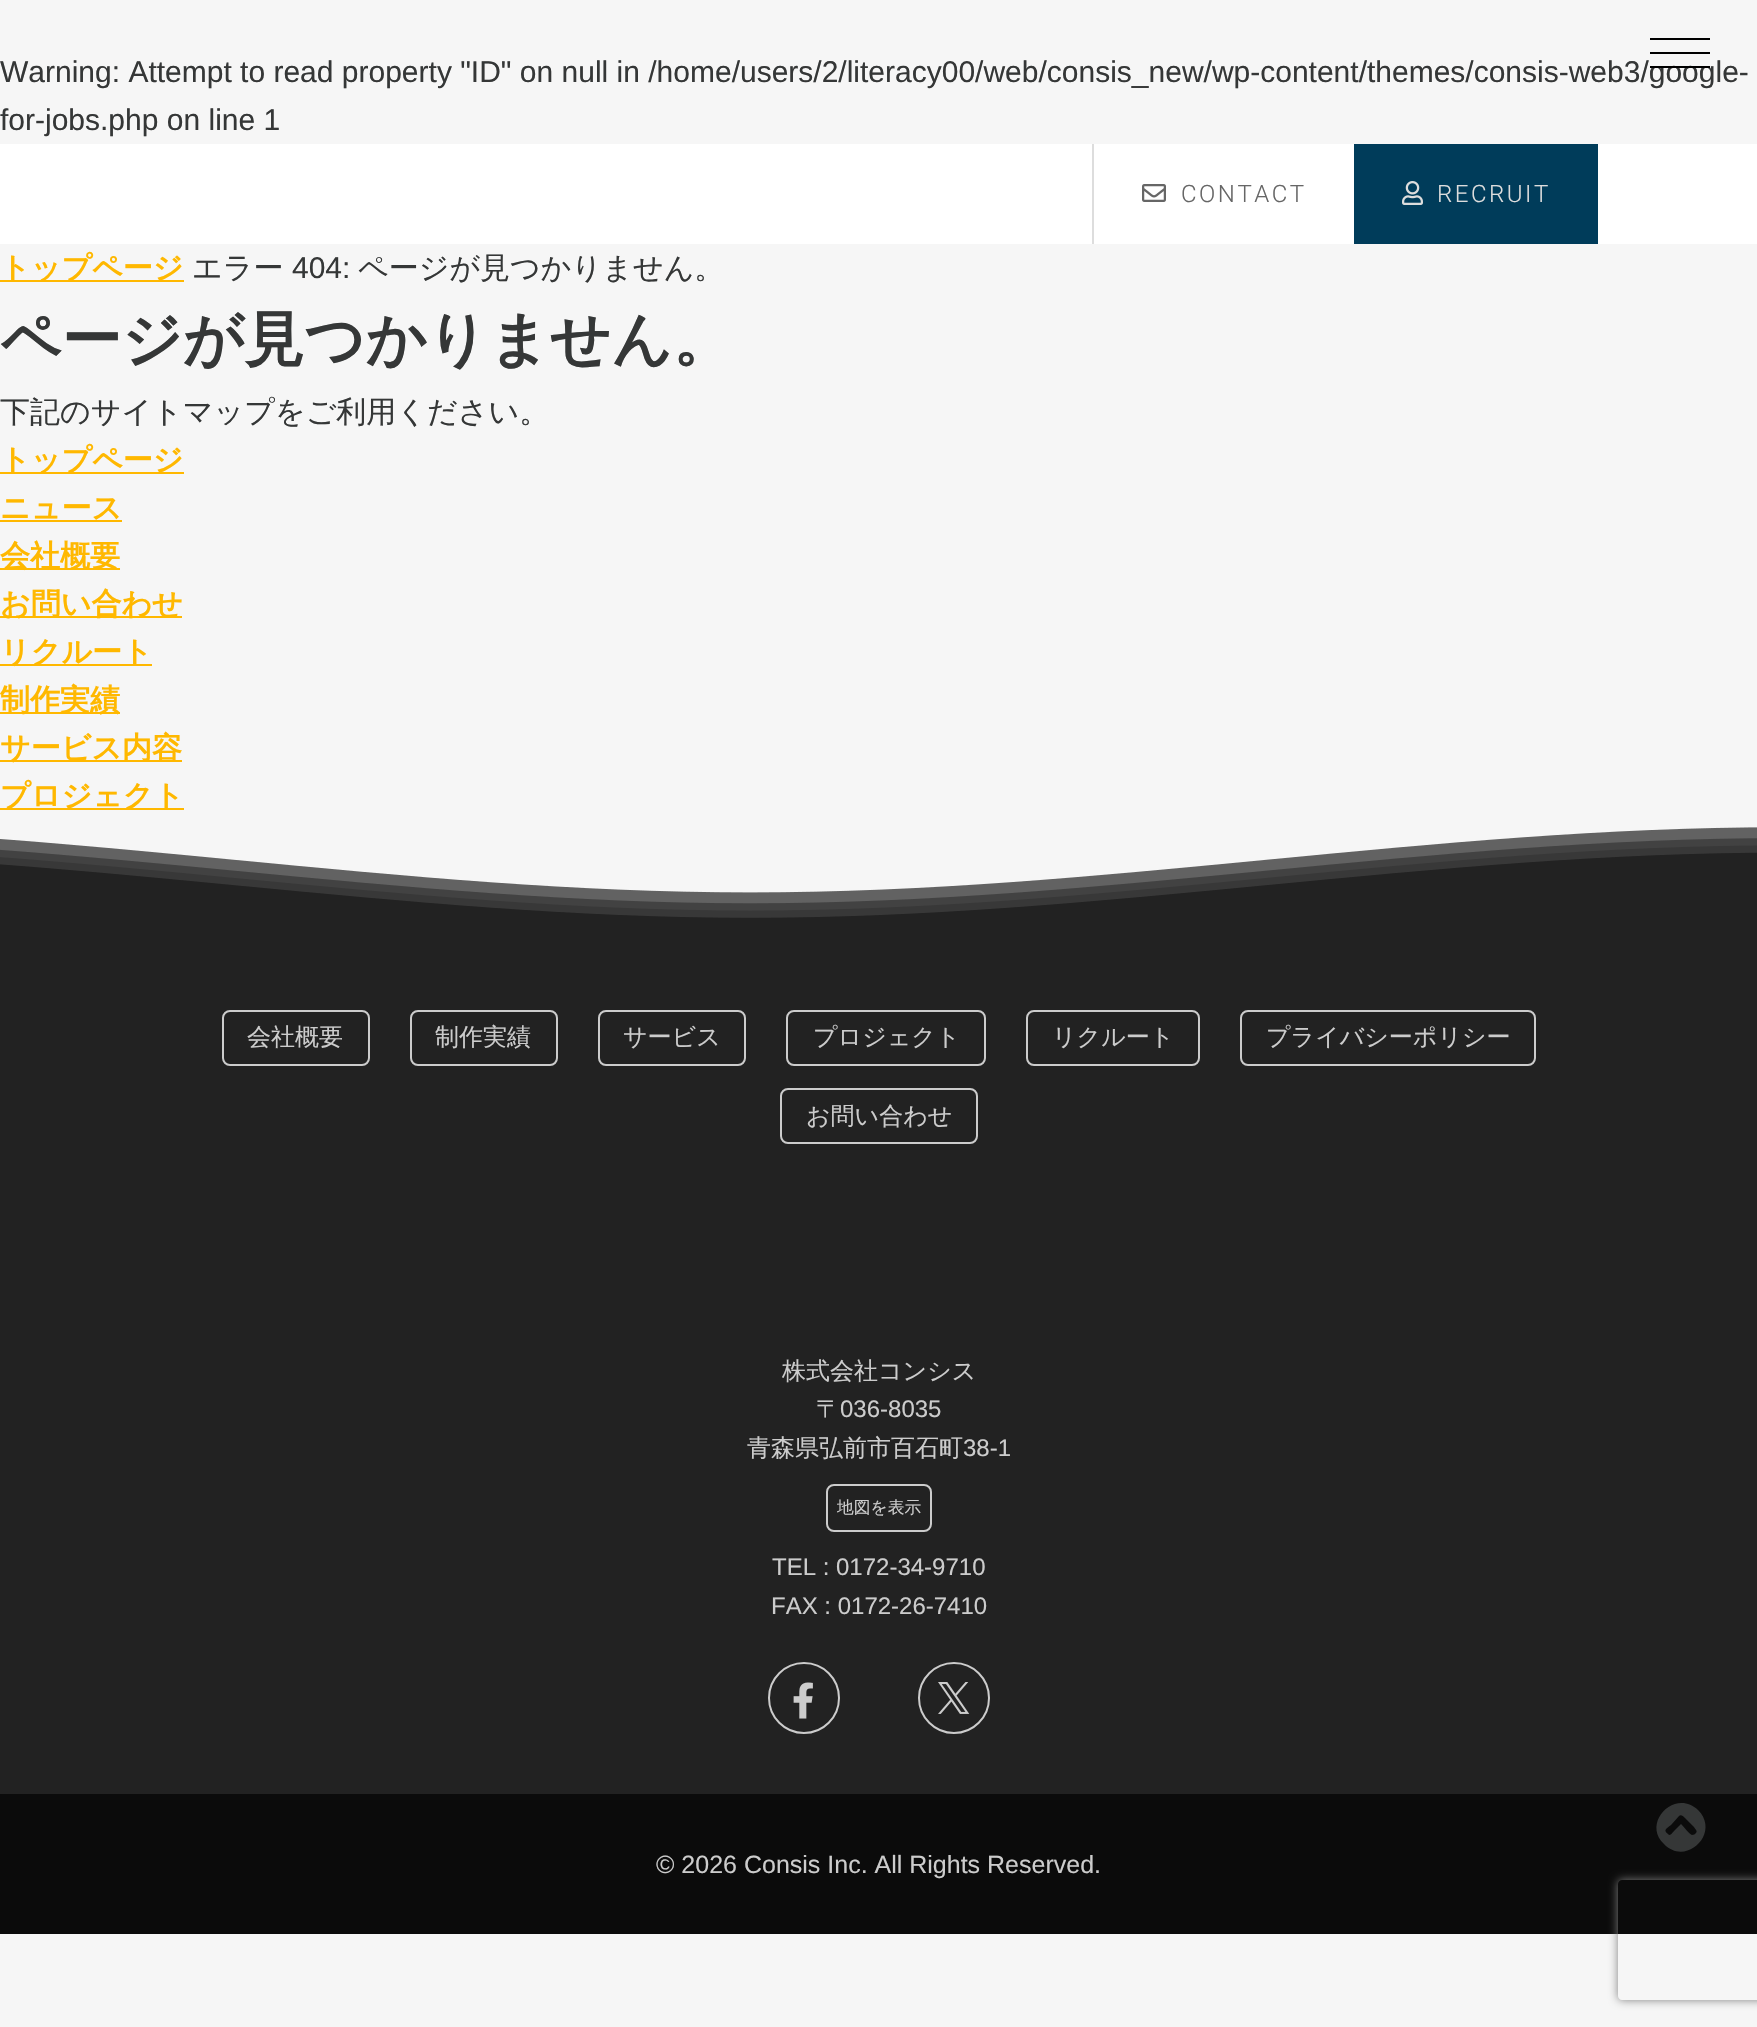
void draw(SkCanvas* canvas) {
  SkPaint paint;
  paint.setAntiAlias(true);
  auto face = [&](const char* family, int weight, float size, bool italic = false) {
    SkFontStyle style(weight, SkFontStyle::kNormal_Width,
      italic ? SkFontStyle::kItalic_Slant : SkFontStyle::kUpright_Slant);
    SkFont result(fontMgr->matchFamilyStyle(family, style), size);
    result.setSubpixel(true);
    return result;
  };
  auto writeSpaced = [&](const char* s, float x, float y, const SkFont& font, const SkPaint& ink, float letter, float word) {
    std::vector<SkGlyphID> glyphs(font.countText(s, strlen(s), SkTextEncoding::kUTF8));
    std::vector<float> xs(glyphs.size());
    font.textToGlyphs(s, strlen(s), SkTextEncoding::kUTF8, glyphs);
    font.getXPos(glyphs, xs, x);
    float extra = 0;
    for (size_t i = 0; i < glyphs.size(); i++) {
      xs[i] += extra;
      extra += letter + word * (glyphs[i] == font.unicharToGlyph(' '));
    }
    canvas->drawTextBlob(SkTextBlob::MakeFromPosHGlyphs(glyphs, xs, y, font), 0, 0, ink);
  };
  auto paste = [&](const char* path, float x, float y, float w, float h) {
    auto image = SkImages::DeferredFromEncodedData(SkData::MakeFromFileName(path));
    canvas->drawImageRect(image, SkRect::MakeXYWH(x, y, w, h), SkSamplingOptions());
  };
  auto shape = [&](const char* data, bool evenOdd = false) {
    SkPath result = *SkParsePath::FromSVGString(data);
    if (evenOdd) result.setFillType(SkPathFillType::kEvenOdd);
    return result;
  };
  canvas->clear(0xfff6f6f6);
  {
    const struct { float x, y, w, h; SkColor color; } items[] = {
      {1650, 38, 60, 2, 0xff000000},
      {1650, 52, 60, 2, 0xff000000},
      {0, 144, 1757, 100, 0xffffffff},
      {1092, 144, 2, 100, 0xffdddddd},
    };
    for (auto [x, y, w, h, color] : items) {
      paint.setColor(color);
      canvas->drawRect(SkRect::MakeXYWH(x, y, w, h), paint);
    }
  }
  paste("img/1.png", 1142, 184, 24, 18);
  paint.setColor(0xff003c5a);
  canvas->drawRect(SkRect::MakeXYWH(1354, 144, 244, 100), paint);
  paste("img/2.png", 1402, 181, 21, 24);
  {
    const struct { float x, y, w, h; SkColor color; } items[] = {
      {0, 280, 184, 2, 0xffffb800},
      {0, 472, 184, 2, 0xffffb800},
      {0, 520, 122, 2, 0xffffb800},
      {0, 568, 120, 2, 0xffffb800},
      {0, 616, 182, 2, 0xffffb800},
      {0, 664, 152, 2, 0xffffb800},
      {0, 712, 120, 2, 0xffffb800},
      {0, 760, 182, 2, 0xffffb800},
      {0, 808, 184, 2, 0xffffb800},
    };
    for (auto [x, y, w, h, color] : items) {
      paint.setColor(color);
      canvas->drawRect(SkRect::MakeXYWH(x, y, w, h), paint);
    }
  }
  paste("img/3.png", 0, 827, 1757, 93);
  paint.setColor(0xff222222);
  canvas->drawRect(SkRect::MakeXYWH(0, 920, 1757, 874), paint);
  paint.setStroke(true);
  paint.setStrokeWidth(2);
  paint.setColor(0xffcccccc);
  canvas->drawRoundRect(SkRect::MakeXYWH(223, 1011, 146, 54), 7, 7, paint);
  canvas->drawRoundRect(SkRect::MakeXYWH(411, 1011, 146, 54), 7, 7, paint);
  canvas->drawRoundRect(SkRect::MakeXYWH(599, 1011, 146, 54), 7, 7, paint);
  canvas->drawRoundRect(SkRect::MakeXYWH(787, 1011, 198, 54), 7, 7, paint);
  canvas->drawRoundRect(SkRect::MakeXYWH(1027, 1011, 172, 54), 7, 7, paint);
  canvas->drawRoundRect(SkRect::MakeXYWH(1241, 1011, 294, 54), 7, 7, paint);
  canvas->drawRoundRect(SkRect::MakeXYWH(781, 1089, 196, 54), 7, 7, paint);
  canvas->drawRoundRect(SkRect::MakeXYWH(827, 1485, 104, 46), 7, 7, paint);
  canvas->drawCircle(804, 1698, 35, paint);
  paste("img/4.png", 793, 1682, 20, 37);
  canvas->drawCircle(954, 1698, 35, paint);
  paste("img/5.png", 938, 1682, 32, 32);
  paint.setStroke(false);
  paint.setColor(0xff0b0b0b);
  canvas->drawRect(SkRect::MakeXYWH(0, 1794, 1757, 140), paint);
  paint.setColor(0xff353737);
  canvas->drawPath(shape("M1664 1844C1641 1822 1676 1788 1698 1810C1721 1833 1686 1867 1664 1844ZM1679 1816L1671 1825C1666 1829 1663 1830 1668 1834C1670 1837 1673 1832 1674 1831L1681 1824C1683 1826 1690 1835 1692 1835C1694 1835 1695 1834 1696 1833C1698 1831 1695 1829 1694 1827L1685 1818C1684 1817 1681 1814 1679 1816Z"), paint);
  canvas->save();
  canvas->clipPath(shape("M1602 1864H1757V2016H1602ZM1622 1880H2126C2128 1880 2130 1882 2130 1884V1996C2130 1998 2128 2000 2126 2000H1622C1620 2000 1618 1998 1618 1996V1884C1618 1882 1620 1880 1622 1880Z", true), true);
  paint.setColor(0xff808080);
  paint.setMaskFilter(SkMaskFilter::MakeBlur(kNormal_SkBlurStyle, 5));
  canvas->drawRoundRect(SkRect::MakeXYWH(1618, 1880, 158, 120), 4, 4, paint);
  paint.setMaskFilter(nullptr);
  canvas->restore();
  auto f0 = face("Liberation Sans", 400, 30);
  paint.setColor(0xff353737);
  canvas->drawString("Warning: Attempt to read property \"ID\" on null in /home/users/2/literacy00/web/consis_new/wp-content/themes/consis-web3/google-", 0, 82, f0, paint);
  paint.setColor(0xff000000);
  canvas->drawRect(SkRect::MakeXYWH(1650, 66, 60, 2), paint);
  paint.setColor(0xff353737);
  canvas->drawString("for-jobs.php on line 1", 0, 130, f0, paint);
  auto f1 = face("Roboto", 300, 24);
  paint.setColor(0xff666666);
  writeSpaced("CONTACT", 1181, 202, f1, paint, 2.5f, 0);
  paint.setColor(0xffdddddd);
  writeSpaced("RECRUIT", 1437, 202, f1, paint, 2.5f, 0);
  auto f2 = face("WenQuanYi Zen Hei", 700, 30);
  paint.setColor(0xffffb800);
  canvas->drawString("トップページ", 0, 278, f2, paint);
  auto f3 = face("WenQuanYi Zen Hei", 500, 30);
  paint.setColor(0xff353737);
  canvas->drawString("エラー", 192, 278, f3, paint);
  canvas->drawString("404:", 292, 278, f0, paint);
  canvas->drawString("ページが見つかりません。", 358, 278, f3, paint);
  auto f4 = face("WenQuanYi Zen Hei", 700, 60);
  canvas->drawString("ページが見つかりません。", 0, 360, f4, paint);
  canvas->drawString("下記のサイトマップをご利用ください。", 0, 422, f3, paint);
  paint.setColor(0xffffb800);
  {
    const struct { const char* s; float x, y; } items[] = {
      {"トップページ", 0, 470},
      {"ニュース", 0, 518},
      {"会社概要", 0, 566},
      {"お問い合わせ", 0, 614},
      {"リクルート", 0, 662},
      {"制作実績", 0, 710},
      {"サービス内容", 0, 758},
      {"プロジェクト", 0, 806},
    };
    for (auto [s, x, y] : items) {
      canvas->drawString(s, x, y, f2, paint);
    }
  }
  auto f5 = face("WenQuanYi Zen Hei", 500, 24);
  paint.setColor(0xffcccccc);
  {
    const struct { const char* s; float x, y; } items[] = {
      {"会社概要", 247, 1045},
      {"制作実績", 435, 1045},
      {"サービス", 623, 1045},
      {"プロジェクト", 813, 1045},
      {"リクルート", 1052, 1045},
      {"プライバシーポリシー", 1266, 1045},
      {"お問い合わせ", 806, 1124},
      {"株式会社コンシス", 782, 1379},
      {"〒", 816, 1417},
    };
    for (auto [s, x, y] : items) {
      canvas->drawString(s, x, y, f5, paint);
    }
  }
  auto f6 = face("Liberation Sans", 400, 24);
  canvas->drawString("036-8035", 840, 1417, f6, paint);
  canvas->drawString("青森県弘前市百石町", 747, 1456, f5, paint);
  canvas->drawString("38-1", 963, 1456, f6, paint);
  auto f7 = face("WenQuanYi Zen Hei", 500, 16.75f);
  canvas->drawString("地図を表示", 837, 1513, f7, paint);
  canvas->drawString("TEL : 0172-34-9710", 772, 1575, f6, paint);
  canvas->drawString("FAX : 0172-26-7410", 771, 1614, f6, paint);
  auto f8 = face("Liberation Sans", 400, 25);
  canvas->drawString("© 2026 Consis Inc. All Rights Reserved.", 656, 1873, f8, paint);
}
